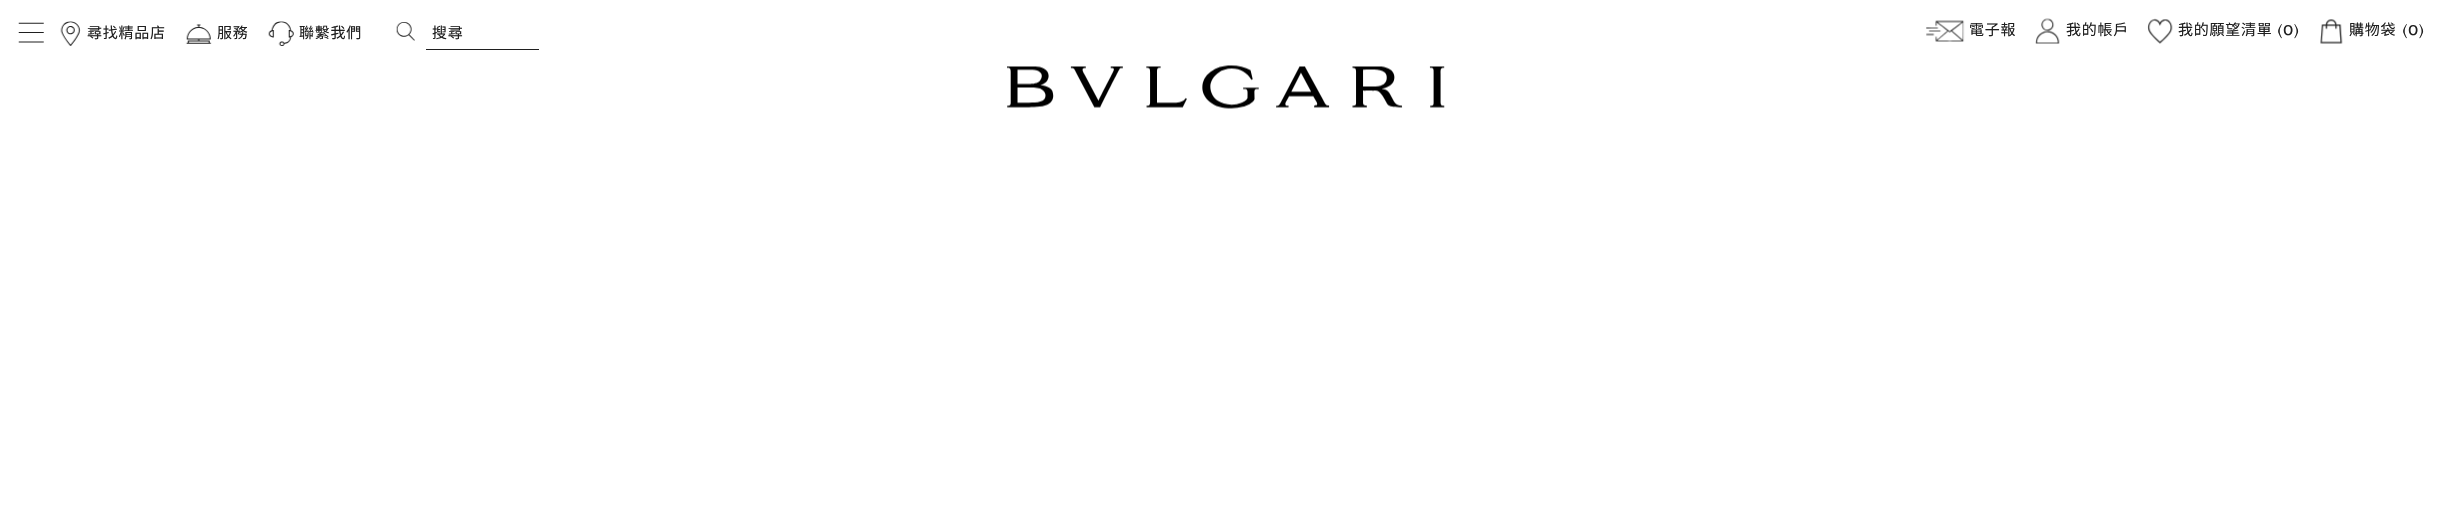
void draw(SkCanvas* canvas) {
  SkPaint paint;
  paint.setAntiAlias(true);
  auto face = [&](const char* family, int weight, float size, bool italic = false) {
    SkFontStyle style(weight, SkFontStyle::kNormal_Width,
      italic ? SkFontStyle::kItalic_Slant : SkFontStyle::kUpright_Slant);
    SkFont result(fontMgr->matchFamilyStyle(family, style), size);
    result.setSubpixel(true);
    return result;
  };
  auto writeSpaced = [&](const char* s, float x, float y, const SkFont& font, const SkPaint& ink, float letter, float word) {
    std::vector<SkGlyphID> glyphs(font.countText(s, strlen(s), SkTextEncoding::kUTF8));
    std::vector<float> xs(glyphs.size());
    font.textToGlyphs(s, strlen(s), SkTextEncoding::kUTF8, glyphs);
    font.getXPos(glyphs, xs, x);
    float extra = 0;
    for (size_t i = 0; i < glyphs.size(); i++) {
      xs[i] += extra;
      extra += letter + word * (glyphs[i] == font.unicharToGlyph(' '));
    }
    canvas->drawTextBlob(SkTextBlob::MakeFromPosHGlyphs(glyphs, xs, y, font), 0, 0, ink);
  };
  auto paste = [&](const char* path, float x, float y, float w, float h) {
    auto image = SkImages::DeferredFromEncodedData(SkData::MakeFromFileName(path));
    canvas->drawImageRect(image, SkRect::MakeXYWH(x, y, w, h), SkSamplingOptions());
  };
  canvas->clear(0xffffffff);
  paste("img/1.png", 18, 22, 26, 21);
  paste("img/2.png", 60, 21, 21, 25);
  paste("img/3.png", 185, 24, 27, 20);
  paste("img/4.png", 268, 21, 26, 25);
  paste("img/5.png", 396, 22, 19, 19);
  paint.setColor(0xff1f1f1f);
  canvas->drawRect(SkRect::MakeXYWH(426, 49, 113, 1), paint);
  paste("img/6.png", 1926, 20, 39, 22);
  paste("img/7.png", 2035, 18, 25, 26);
  paste("img/8.png", 2147, 18, 26, 26);
  paste("img/9.png", 2320, 19, 23, 25);
  paste("img/10.png", 1007, 65, 438, 44);
  auto f0 = face("Noto Sans CJK TC", 400, 15);
  {
    const struct { const char* s; float x, y; } items[] = {
      {"尋找精品店", 87, 38},
      {"服務", 217, 38},
      {"聯繫我們", 299, 38},
      {"搜尋", 432, 38},
      {"電子報", 1969, 35},
      {"我的帳戶", 2066, 35},
      {"我的願望清單", 2178, 35},
    };
    for (auto [s, x, y] : items) {
      writeSpaced(s, x, y, f0, paint, 0.75f, 0);
    }
  }
  auto f1 = face("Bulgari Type", 400, 15);
  writeSpaced("(0)", 2277, 35, f1, paint, 0.75f, 0);
  writeSpaced("購物袋", 2349, 35, f0, paint, 0.75f, 0);
  writeSpaced("(0)", 2402, 35, f1, paint, 0.75f, 0);
}
